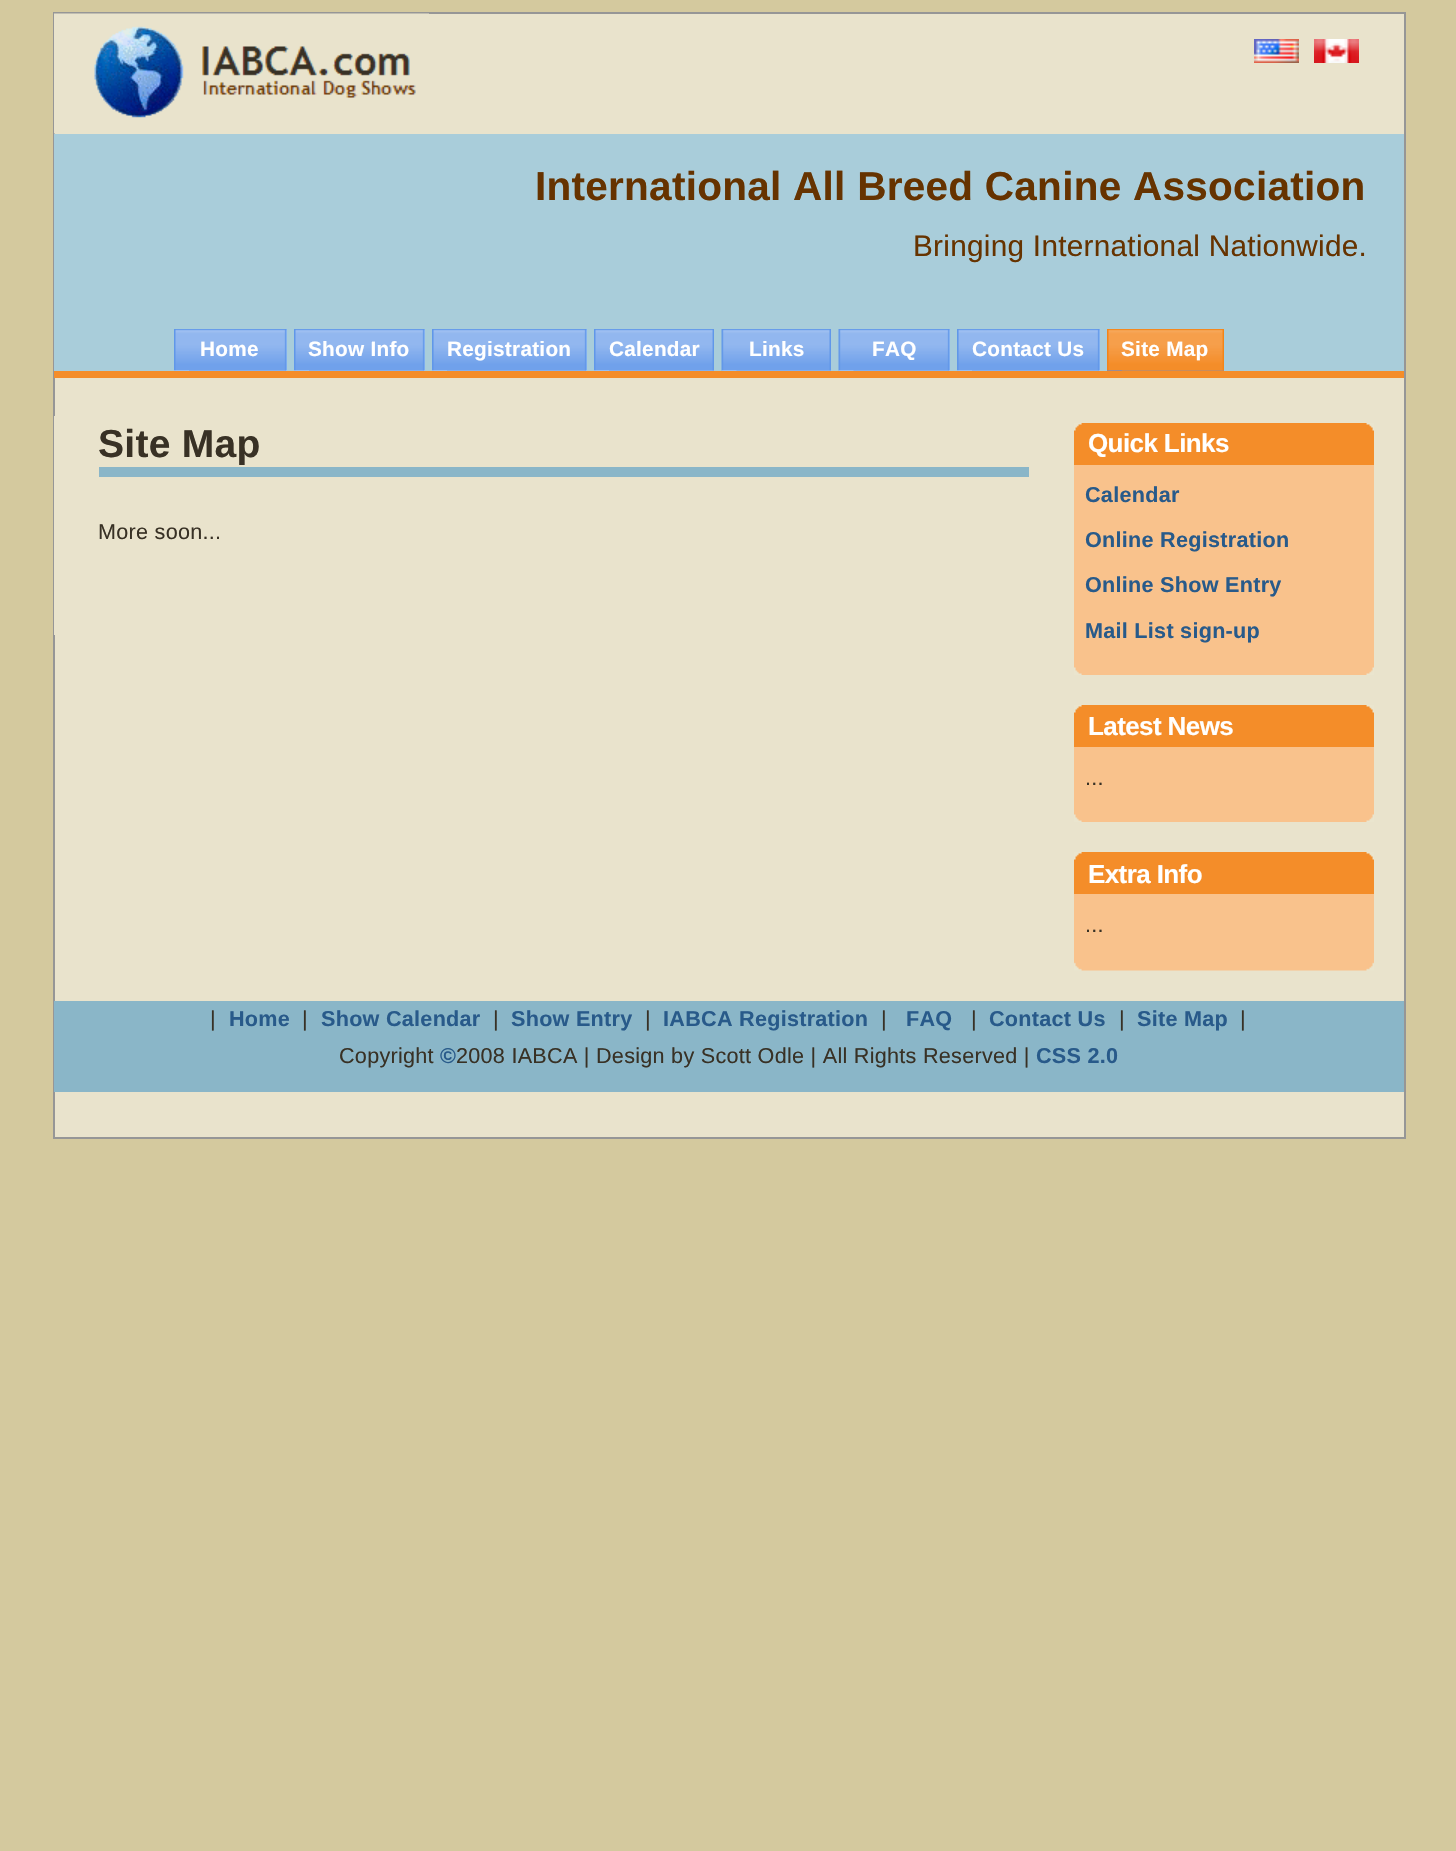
void draw(SkCanvas* canvas) {
  SkPaint paint;
  paint.setAntiAlias(true);
  auto face = [&](const char* family, int weight, float size, bool italic = false) {
    SkFontStyle style(weight, SkFontStyle::kNormal_Width,
      italic ? SkFontStyle::kItalic_Slant : SkFontStyle::kUpright_Slant);
    SkFont result(fontMgr->matchFamilyStyle(family, style), size);
    result.setSubpixel(true);
    return result;
  };
  auto writeSpaced = [&](const char* s, float x, float y, const SkFont& font, const SkPaint& ink, float letter, float word) {
    std::vector<SkGlyphID> glyphs(font.countText(s, strlen(s), SkTextEncoding::kUTF8));
    std::vector<float> xs(glyphs.size());
    font.textToGlyphs(s, strlen(s), SkTextEncoding::kUTF8, glyphs);
    font.getXPos(glyphs, xs, x);
    float extra = 0;
    for (size_t i = 0; i < glyphs.size(); i++) {
      xs[i] += extra;
      extra += letter + word * (glyphs[i] == font.unicharToGlyph(' '));
    }
    canvas->drawTextBlob(SkTextBlob::MakeFromPosHGlyphs(glyphs, xs, y, font), 0, 0, ink);
  };
  auto paste = [&](const char* path, float x, float y, float w, float h) {
    auto image = SkImages::DeferredFromEncodedData(SkData::MakeFromFileName(path));
    canvas->drawImageRect(image, SkRect::MakeXYWH(x, y, w, h), SkSamplingOptions());
  };
  canvas->clear(0xffd4c99e);
  paint.setColor(0xffe9e3cc);
  canvas->drawRect(SkRect::MakeXYWH(54, 13, 1351, 1125), paint);
  paint.setStroke(true);
  paint.setStrokeWidth(2);
  paint.setColor(0xff969696);
  canvas->drawRect(SkRect::MakeXYWH(54, 13, 1351, 1125), paint);
  paste("img/1.png", 54, 13, 375, 121);
  paste("img/2.png", 1254, 39, 45, 24);
  paste("img/3.png", 1314, 39, 45, 24);
  paint.setStroke(false);
  {
    const struct { float x, y, w, h; SkColor color; } items[] = {
      {54, 134, 1350, 237, 0xffa9cdda},
      {54, 371, 1350, 7, 0xfff48d29},
      {174, 329, 113, 42, 0xffbbddff},
    };
    for (auto [x, y, w, h, color] : items) {
      paint.setColor(color);
      canvas->drawRect(SkRect::MakeXYWH(x, y, w, h), paint);
    }
  }
  paste("img/4.png", 174, 329, 113, 42);
  paste("img/5.png", 189, 329, 98, 42);
  canvas->drawRect(SkRect::MakeXYWH(294, 329, 131, 42), paint);
  paste("img/6.png", 294, 329, 131, 42);
  paste("img/7.png", 309, 329, 116, 42);
  canvas->drawRect(SkRect::MakeXYWH(432, 329, 155, 42), paint);
  paste("img/8.png", 432, 329, 155, 42);
  paste("img/9.png", 447, 329, 140, 42);
  canvas->drawRect(SkRect::MakeXYWH(594, 370, 120, 1), paint);
  paste("img/10.png", 594, 329, 120, 42);
  paste("img/11.png", 609, 329, 105, 42);
  canvas->drawRect(SkRect::MakeXYWH(722, 370, 109, 1), paint);
  paste("img/12.png", 721, 329, 110, 42);
  paste("img/13.png", 736, 329, 95, 42);
  canvas->drawRect(SkRect::MakeXYWH(839, 329, 111, 42), paint);
  paste("img/14.png", 838, 329, 112, 42);
  paste("img/15.png", 853, 329, 97, 42);
  canvas->drawRect(SkRect::MakeXYWH(957, 329, 143, 42), paint);
  paste("img/16.png", 957, 329, 143, 42);
  paste("img/17.png", 972, 329, 128, 42);
  paint.setColor(0xff4488ff);
  canvas->drawRect(SkRect::MakeXYWH(1107, 370, 117, 1), paint);
  paste("img/18.png", 1107, 329, 117, 42);
  paste("img/19.png", 1122, 329, 102, 42);
  {
    const struct { float x, y, w, h; SkColor color; } items[] = {
      {54, 416, 1, 219, 0xffe9e3cc},
      {99, 467, 930, 10, 0xff8ab6c8},
      {1074, 465, 300, 195, 0xfff9c28c},
      {1074, 423, 300, 42, 0xfff48d29},
    };
    for (auto [x, y, w, h, color] : items) {
      paint.setColor(color);
      canvas->drawRect(SkRect::MakeXYWH(x, y, w, h), paint);
    }
  }
  paste("img/20.png", 1074, 423, 15, 15);
  paste("img/21.png", 1366, 423, 8, 8);
  paste("img/22.png", 1074, 660, 300, 15);
  paint.setColor(0xfff9c28c);
  canvas->drawRect(SkRect::MakeXYWH(1074, 747, 300, 60), paint);
  paint.setColor(0xfff48d29);
  canvas->drawRect(SkRect::MakeXYWH(1074, 705, 300, 42), paint);
  paste("img/20.png", 1074, 705, 15, 15);
  paste("img/21.png", 1366, 705, 8, 8);
  paste("img/22.png", 1074, 807, 300, 15);
  paint.setColor(0xfff9c28c);
  canvas->drawRect(SkRect::MakeXYWH(1074, 894, 300, 62), paint);
  paint.setColor(0xfff48d29);
  canvas->drawRect(SkRect::MakeXYWH(1074, 852, 300, 42), paint);
  paste("img/20.png", 1074, 852, 15, 15);
  paste("img/21.png", 1366, 852, 8, 8);
  paste("img/23.png", 1074, 956, 300, 15);
  paint.setColor(0xff8ab6c8);
  canvas->drawRect(SkRect::MakeXYWH(54, 1001, 1350, 91), paint);
  auto f0 = face("Liberation Sans", 700, 40.5f);
  paint.setColor(0xff663300);
  writeSpaced("International All Breed Canine Association", 535, 200, f0, paint, 0.27f, 0);
  auto f1 = face("Liberation Sans", 400, 29.75f);
  writeSpaced("Bringing International Nationwide.", 913, 256, f1, paint, 0.27f, 0);
  auto f2 = face("Liberation Sans", 700, 20.75f);
  paint.setColor(0xffffffff);
  {
    const struct { const char* s; float x, y; } items[] = {
      {"Home", 200, 356},
      {"Show Info", 308, 356},
      {"Registration", 447, 356},
      {"Calendar", 609, 356},
      {"Links", 749, 356},
      {"FAQ", 872, 356},
      {"Contact Us", 972, 356},
      {"Site Map", 1121, 356},
    };
    for (auto [s, x, y] : items) {
      writeSpaced(s, x, y, f2, paint, 0.27f, 0);
    }
  }
  auto f3 = face("Liberation Sans", 700, 39);
  paint.setColor(0xff383125);
  writeSpaced("Site Map", 98, 457, f3, paint, 0.27f, 0);
  auto f4 = face("Liberation Sans", 400, 21.6f);
  writeSpaced("More soon...", 98, 539, f4, paint, 0.27f, 0);
  auto f5 = face("Liberation Sans", 700, 26);
  paint.setColor(0xffffffff);
  writeSpaced("Quick Links", 1088, 452, f5, paint, -0.6f, 0);
  auto f6 = face("Liberation Sans", 700, 21.6f);
  paint.setColor(0xff285a8a);
  {
    const struct { const char* s; float x, y; } items[] = {
      {"Calendar", 1085, 502},
      {"Online Registration", 1085, 547},
      {"Online Show Entry", 1085, 592},
      {"Mail List sign-up", 1085, 638},
    };
    for (auto [s, x, y] : items) {
      writeSpaced(s, x, y, f6, paint, 0.27f, 0);
    }
  }
  paint.setColor(0xffffffff);
  writeSpaced("Latest News", 1088, 735, f5, paint, -0.6f, 0);
  paint.setColor(0xff383125);
  writeSpaced("...", 1085, 785, f4, paint, 0.27f, 0);
  paint.setColor(0xffffffff);
  writeSpaced("Extra Info", 1088, 883, f5, paint, -0.6f, 0);
  paint.setColor(0xff383125);
  writeSpaced("...", 1085, 932, f4, paint, 0.27f, 0);
  writeSpaced("|", 210, 1026, f4, paint, 0.27f, 0);
  paint.setColor(0xff285a8a);
  writeSpaced("Home", 229, 1026, f6, paint, 0.27f, 0);
  paint.setColor(0xff383125);
  writeSpaced("|", 302, 1026, f4, paint, 0.27f, 0);
  paint.setColor(0xff285a8a);
  writeSpaced("Show Calendar", 321, 1026, f6, paint, 0.27f, 0);
  paint.setColor(0xff383125);
  writeSpaced("|", 493, 1026, f4, paint, 0.27f, 0);
  paint.setColor(0xff285a8a);
  writeSpaced("Show Entry", 511, 1026, f6, paint, 0.27f, 0);
  paint.setColor(0xff383125);
  writeSpaced("|", 645, 1026, f4, paint, 0.27f, 0);
  paint.setColor(0xff285a8a);
  writeSpaced("IABCA Registration", 663, 1026, f6, paint, 0.27f, 0);
  paint.setColor(0xff383125);
  writeSpaced("|", 881, 1026, f4, paint, 0.27f, 0);
  paint.setColor(0xff285a8a);
  writeSpaced("FAQ", 906, 1026, f6, paint, 0.27f, 0);
  paint.setColor(0xff383125);
  writeSpaced("|", 971, 1026, f4, paint, 0.27f, 0);
  paint.setColor(0xff285a8a);
  writeSpaced("Contact Us", 989, 1026, f6, paint, 0.27f, 0);
  paint.setColor(0xff383125);
  writeSpaced("|", 1119, 1026, f4, paint, 0.27f, 0);
  paint.setColor(0xff285a8a);
  writeSpaced("Site Map", 1137, 1026, f6, paint, 0.27f, 0);
  paint.setColor(0xff383125);
  writeSpaced("|", 1240, 1026, f4, paint, 0.27f, 0);
  writeSpaced("Copyright", 339, 1063, f4, paint, 0.27f, 0);
  paint.setColor(0xff285a8a);
  writeSpaced("©", 440, 1063, f6, paint, 0.27f, 0);
  paint.setColor(0xff383125);
  writeSpaced("2008 IABCA | Design by Scott Odle | All Rights Reserved |", 456, 1063, f4, paint, 0.27f, 0);
  paint.setColor(0xff285a8a);
  writeSpaced("CSS 2.0", 1036, 1063, f6, paint, 0.27f, 0);
}
